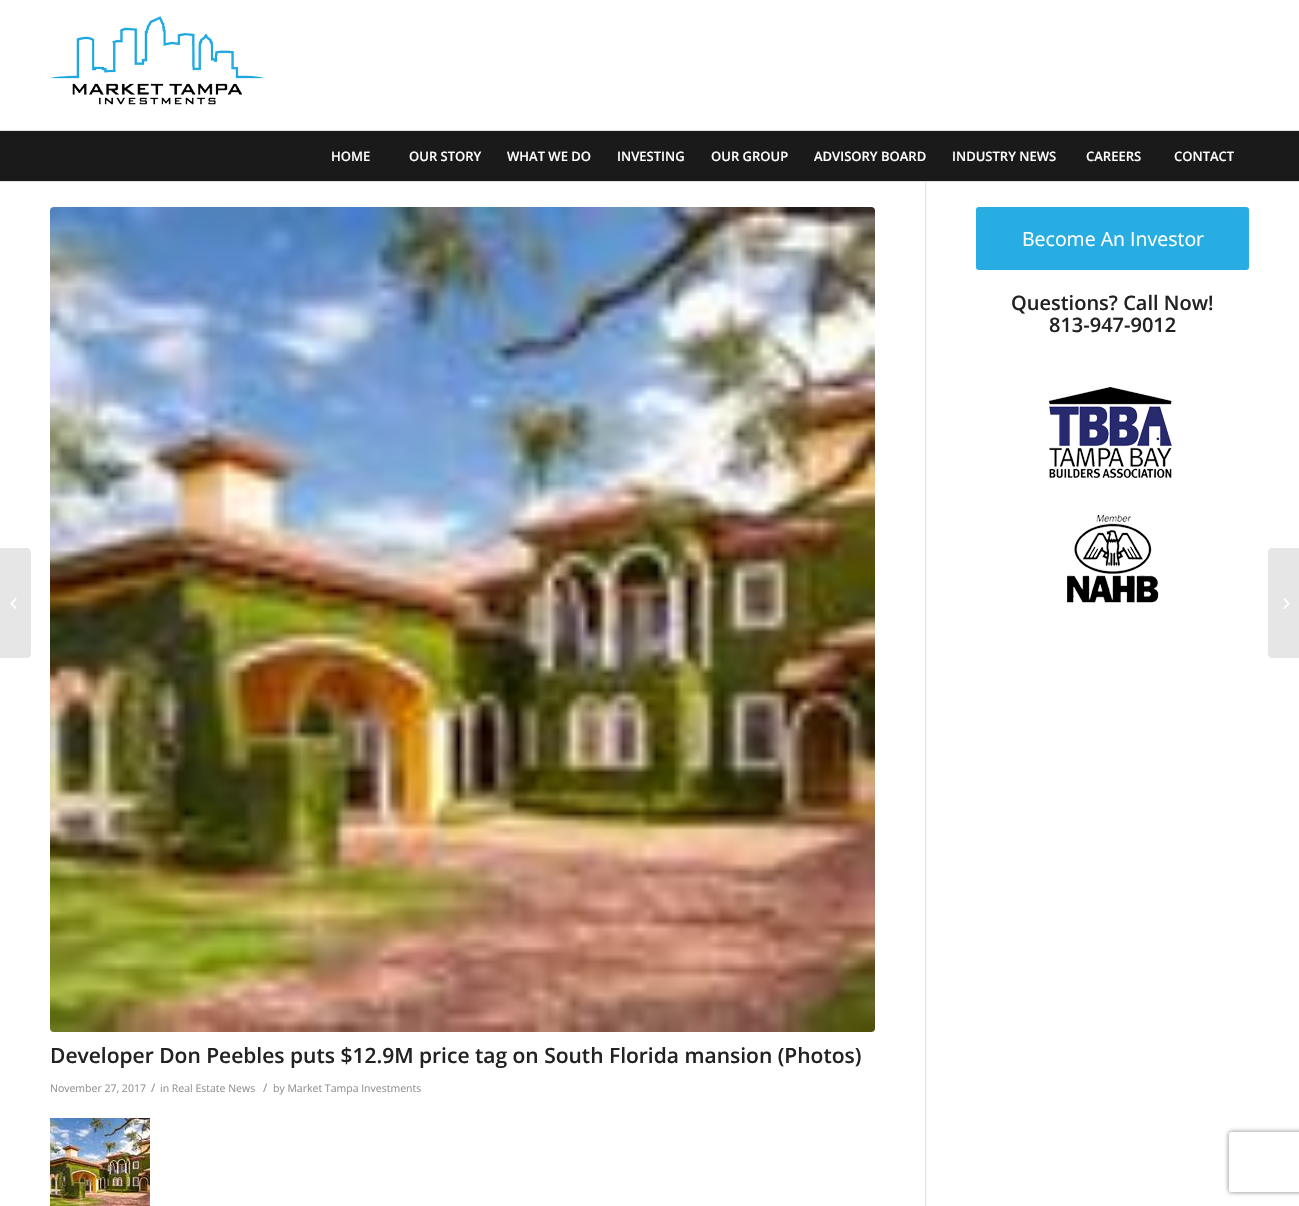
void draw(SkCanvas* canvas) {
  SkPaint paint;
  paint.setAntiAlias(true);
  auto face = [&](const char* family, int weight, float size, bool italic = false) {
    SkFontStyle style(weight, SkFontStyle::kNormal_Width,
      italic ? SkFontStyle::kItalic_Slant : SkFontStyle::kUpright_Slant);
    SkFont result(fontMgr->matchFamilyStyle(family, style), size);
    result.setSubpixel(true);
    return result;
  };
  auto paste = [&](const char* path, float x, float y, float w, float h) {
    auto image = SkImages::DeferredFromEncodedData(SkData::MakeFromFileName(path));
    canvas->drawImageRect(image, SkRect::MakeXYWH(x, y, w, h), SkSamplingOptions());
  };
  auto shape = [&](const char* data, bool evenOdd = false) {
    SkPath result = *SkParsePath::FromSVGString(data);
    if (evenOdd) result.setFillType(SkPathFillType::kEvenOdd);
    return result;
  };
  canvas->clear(0xffffffff);
  paint.setColor(0xffe1e1e1);
  canvas->drawRect(SkRect::MakeXYWH(0, 181, 1299, 1), paint);
  paste("img/1.png", 50, 16, 214, 89);
  paint.setColor(0xff1a1a1a);
  canvas->drawRect(SkRect::MakeXYWH(0, 131, 1299, 50), paint);
  paint.setColor(0xffe1e1e1);
  canvas->drawRect(SkRect::MakeXYWH(0, 130, 1299, 1), paint);
  paint.setColor(0xffe6e6e6);
  canvas->drawPath(shape("M0 548H27C29 548 31 550 31 552V654C31 656 29 658 27 658H0Z"), paint);
  paste("img/2.png", 10, 598, 7, 11);
  paint.setColor(0xff28ade2);
  canvas->drawRoundRect(SkRect::MakeXYWH(976, 207, 273, 63), 3, 3, paint);
  paste("img/3.png", 1049, 387, 123, 91);
  paste("img/4.png", 1067, 514, 92, 89);
  paint.setColor(0xffe1e1e1);
  canvas->drawRect(SkRect::MakeXYWH(925, 182, 1, 1024), paint);
  paste("img/5.png", 50, 207, 825, 825);
  paste("img/6.png", 50, 1118, 100, 88);
  paint.setColor(0xffe6e6e6);
  canvas->drawPath(shape("M1272 548H1299V658H1272C1270 658 1268 656 1268 654V552C1268 550 1270 548 1272 548Z"), paint);
  paste("img/7.png", 1283, 598, 7, 11);
  canvas->save();
  canvas->clipPath(shape("M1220 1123H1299V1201H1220ZM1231 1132H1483C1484 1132 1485 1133 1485 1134V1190C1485 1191 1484 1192 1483 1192H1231C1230 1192 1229 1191 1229 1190V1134C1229 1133 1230 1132 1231 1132Z", true), true);
  paint.setColor(0xff808080);
  paint.setMaskFilter(SkMaskFilter::MakeBlur(kNormal_SkBlurStyle, 2.5f));
  canvas->drawRoundRect(SkRect::MakeXYWH(1229, 1132, 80, 60), 2, 2, paint);
  paint.setMaskFilter(nullptr);
  canvas->restore();
  auto f0 = face("Open Sans", 600, 13);
  paint.setColor(0xffffffff);
  {
    const struct { const char* s; float x, y; } items[] = {
      {"HOME", 331, 161},
      {"OUR STORY", 409, 161},
      {"WHAT WE DO", 507, 161},
      {"INVESTING", 617, 161},
      {"OUR GROUP", 711, 161},
      {"ADVISORY BOARD", 814, 161},
      {"INDUSTRY NEWS", 952, 161},
      {"CAREERS", 1086, 161},
      {"CONTACT", 1174, 161},
    };
    for (auto [s, x, y] : items) {
      canvas->drawString(s, x, y, f0, paint);
    }
  }
  auto f1 = face("Open Sans", 400, 19.5f);
  canvas->drawString("Become An Investor", 1022, 246, f1, paint);
  auto f2 = face("Open Sans", 600, 20);
  paint.setColor(0xff222222);
  canvas->drawString("Questions? Call Now!", 1011, 310, f2, paint);
  canvas->drawString("813-947-9012", 1049, 332, f2, paint);
  auto f3 = face("Open Sans", 600, 21);
  canvas->drawString("Developer Don Peebles puts $12.9M price tag on South Florida mansion (Photos)", 50, 1063, f3, paint);
  auto f4 = face("Open Sans", 400, 10.5f);
  paint.setColor(0xff919191);
  canvas->drawString("November 27, 2017", 50, 1092, f4, paint);
  auto f5 = face("Open Sans", 400, 12);
  canvas->drawString("/", 151, 1092, f5, paint);
  canvas->drawString("in Real Estate News", 160, 1092, f4, paint);
  canvas->drawString("/", 263, 1092, f5, paint);
  canvas->drawString("by Market Tampa Investments", 273, 1092, f4, paint);
}
